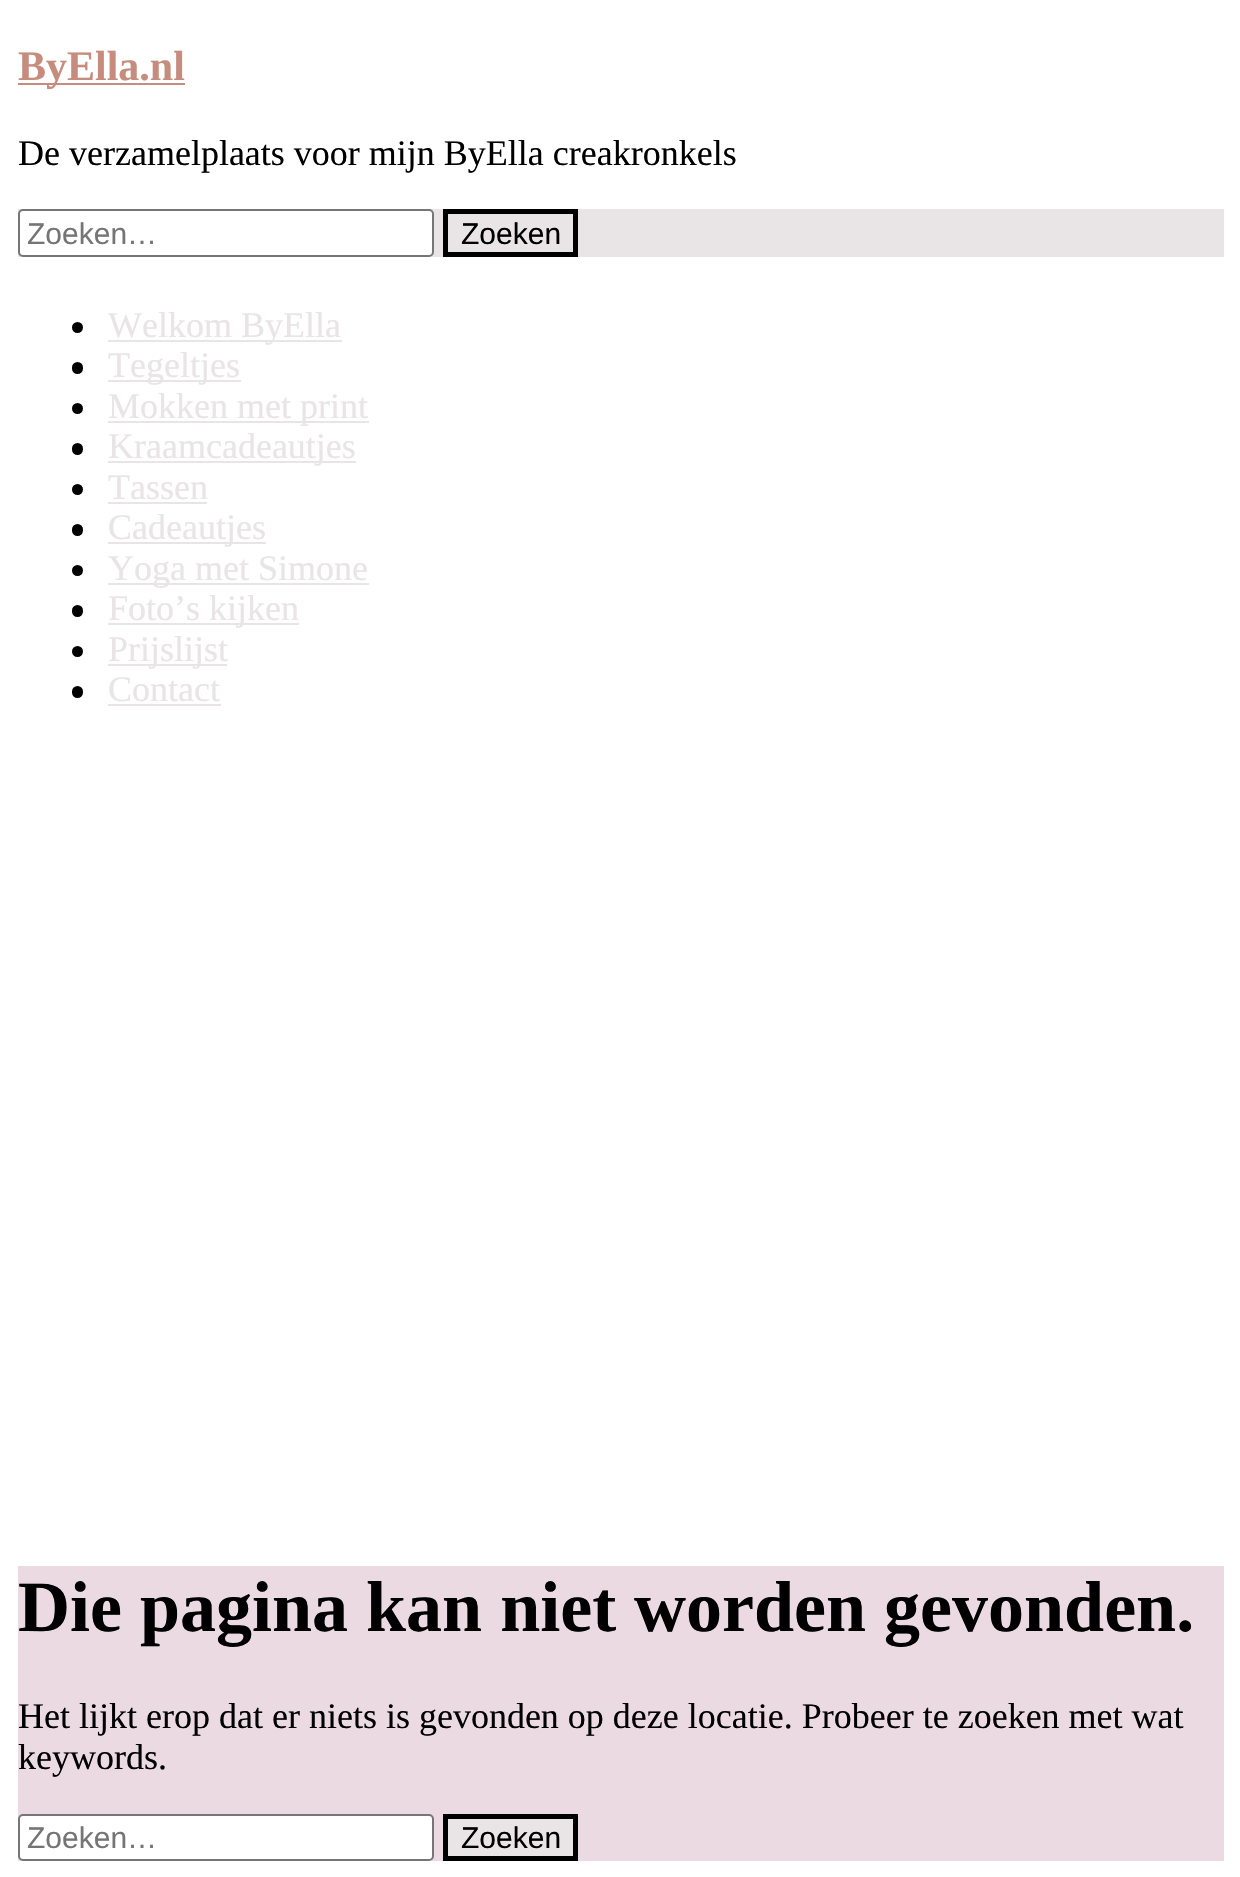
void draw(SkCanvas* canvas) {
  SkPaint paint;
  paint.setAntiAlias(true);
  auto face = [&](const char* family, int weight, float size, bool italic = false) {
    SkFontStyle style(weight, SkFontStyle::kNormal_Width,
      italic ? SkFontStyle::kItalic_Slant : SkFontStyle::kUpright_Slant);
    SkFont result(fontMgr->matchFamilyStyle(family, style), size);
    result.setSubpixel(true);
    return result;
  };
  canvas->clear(0xffffffff);
  paint.setColor(0xffc68d7e);
  canvas->drawRect(SkRect::MakeXYWH(18, 83, 167, 2), paint);
  paint.setColor(0xffe9e4e5);
  canvas->drawRect(SkRect::MakeXYWH(18, 209, 1206, 48), paint);
  paint.setColor(0xffffffff);
  canvas->drawRoundRect(SkRect::MakeXYWH(19, 210, 414, 46), 4, 4, paint);
  paint.setStroke(true);
  paint.setStrokeWidth(2);
  paint.setColor(0xff767676);
  canvas->drawRoundRect(SkRect::MakeXYWH(19, 210, 414, 46), 4, 4, paint);
  paint.setStrokeWidth(5);
  paint.setColor(0xff000000);
  canvas->drawRect(SkRect::MakeXYWH(445.5f, 211.5f, 130, 43), paint);
  paint.setStroke(false);
  canvas->drawCircle(77.5f, 327.5f, 5.5f, paint);
  paint.setColor(0xffe9e4e5);
  canvas->drawRect(SkRect::MakeXYWH(108, 340, 234, 2), paint);
  paint.setColor(0xff000000);
  canvas->drawRoundRect(SkRect::MakeXYWH(72, 362, 11, 12), 5.5f, 5.5f, paint);
  paint.setColor(0xffe9e4e5);
  canvas->drawRect(SkRect::MakeXYWH(108, 380, 133, 2), paint);
  paint.setColor(0xff000000);
  canvas->drawCircle(77.5f, 408.5f, 5.5f, paint);
  paint.setColor(0xffe9e4e5);
  canvas->drawRect(SkRect::MakeXYWH(108, 421, 261, 2), paint);
  paint.setColor(0xff000000);
  canvas->drawRoundRect(SkRect::MakeXYWH(72, 443, 11, 12), 5.5f, 5.5f, paint);
  paint.setColor(0xffe9e4e5);
  canvas->drawRect(SkRect::MakeXYWH(108, 461, 248, 2), paint);
  paint.setColor(0xff000000);
  canvas->drawCircle(77.5f, 489.5f, 5.5f, paint);
  paint.setColor(0xffe9e4e5);
  canvas->drawRect(SkRect::MakeXYWH(108, 502, 99, 2), paint);
  paint.setColor(0xff000000);
  canvas->drawRoundRect(SkRect::MakeXYWH(72, 524, 11, 12), 5.5f, 5.5f, paint);
  paint.setColor(0xffe9e4e5);
  canvas->drawRect(SkRect::MakeXYWH(108, 542, 158, 2), paint);
  paint.setColor(0xff000000);
  canvas->drawCircle(77.5f, 570.5f, 5.5f, paint);
  paint.setColor(0xffe9e4e5);
  canvas->drawRect(SkRect::MakeXYWH(108, 583, 261, 2), paint);
  paint.setColor(0xff000000);
  canvas->drawRoundRect(SkRect::MakeXYWH(72, 605, 11, 12), 5.5f, 5.5f, paint);
  paint.setColor(0xffe9e4e5);
  canvas->drawRect(SkRect::MakeXYWH(108, 623, 191, 2), paint);
  paint.setColor(0xff000000);
  canvas->drawCircle(77.5f, 651.5f, 5.5f, paint);
  paint.setColor(0xffe9e4e5);
  canvas->drawRect(SkRect::MakeXYWH(108, 664, 119, 2), paint);
  paint.setColor(0xff000000);
  canvas->drawRoundRect(SkRect::MakeXYWH(72, 686, 11, 12), 5.5f, 5.5f, paint);
  paint.setColor(0xffe9e4e5);
  canvas->drawRect(SkRect::MakeXYWH(108, 704, 113, 2), paint);
  paint.setColor(0xffecdae3);
  canvas->drawRect(SkRect::MakeXYWH(18, 1566, 1206, 295), paint);
  paint.setColor(0xffffffff);
  canvas->drawRoundRect(SkRect::MakeXYWH(19, 1815, 414, 45), 4, 4, paint);
  paint.setStroke(true);
  paint.setStrokeWidth(2);
  paint.setColor(0xff767676);
  canvas->drawRoundRect(SkRect::MakeXYWH(19, 1815, 414, 45), 4, 4, paint);
  paint.setStroke(false);
  paint.setColor(0xffe9e4e5);
  canvas->drawRect(SkRect::MakeXYWH(445.5f, 1816.5f, 130, 42), paint);
  paint.setStroke(true);
  paint.setStrokeWidth(5);
  paint.setColor(0xff000000);
  canvas->drawRect(SkRect::MakeXYWH(445.5f, 1816.5f, 130, 42), paint);
  auto f0 = face("Liberation Serif", 700, 42);
  paint.setStroke(false);
  paint.setColor(0xffc68d7e);
  canvas->drawString("ByElla.nl", 18, 80, f0, paint);
  auto f1 = face("Liberation Serif", 400, 36);
  paint.setColor(0xff000000);
  canvas->drawString("De verzamelplaats voor mijn ByElla creakronkels", 18, 165, f1, paint);
  auto f2 = face("Liberation Sans", 400, 30);
  paint.setColor(0xff757575);
  canvas->drawString("Zoeken…", 27, 244, f2, paint);
  paint.setColor(0xff000000);
  canvas->drawString("Zoeken", 461, 244, f2, paint);
  paint.setColor(0xffe9e4e5);
  {
    const struct { const char* s; float x, y; } items[] = {
      {"Welkom ByElla", 108, 337},
      {"Tegeltjes", 108, 377},
      {"Mokken met print", 108, 418},
      {"Kraamcadeautjes", 108, 458},
      {"Tassen", 108, 499},
      {"Cadeautjes", 108, 539},
      {"Yoga met Simone", 108, 580},
      {"Foto’s kijken", 108, 620},
      {"Prijslijst", 108, 661},
      {"Contact", 108, 701},
    };
    for (auto [s, x, y] : items) {
      canvas->drawString(s, x, y, f1, paint);
    }
  }
  auto f3 = face("Liberation Serif", 700, 72);
  paint.setColor(0xff000000);
  canvas->drawString("Die pagina kan niet worden gevonden.", 18, 1631, f3, paint);
  canvas->drawString("Het lijkt erop dat er niets is gevonden op deze locatie. Probeer te zoeken met wat", 18, 1728, f1, paint);
  canvas->drawString("keywords.", 18, 1769, f1, paint);
  paint.setColor(0xff757575);
  canvas->drawString("Zoeken…", 27, 1848, f2, paint);
  paint.setColor(0xff000000);
  canvas->drawString("Zoeken", 461, 1848, f2, paint);
}
